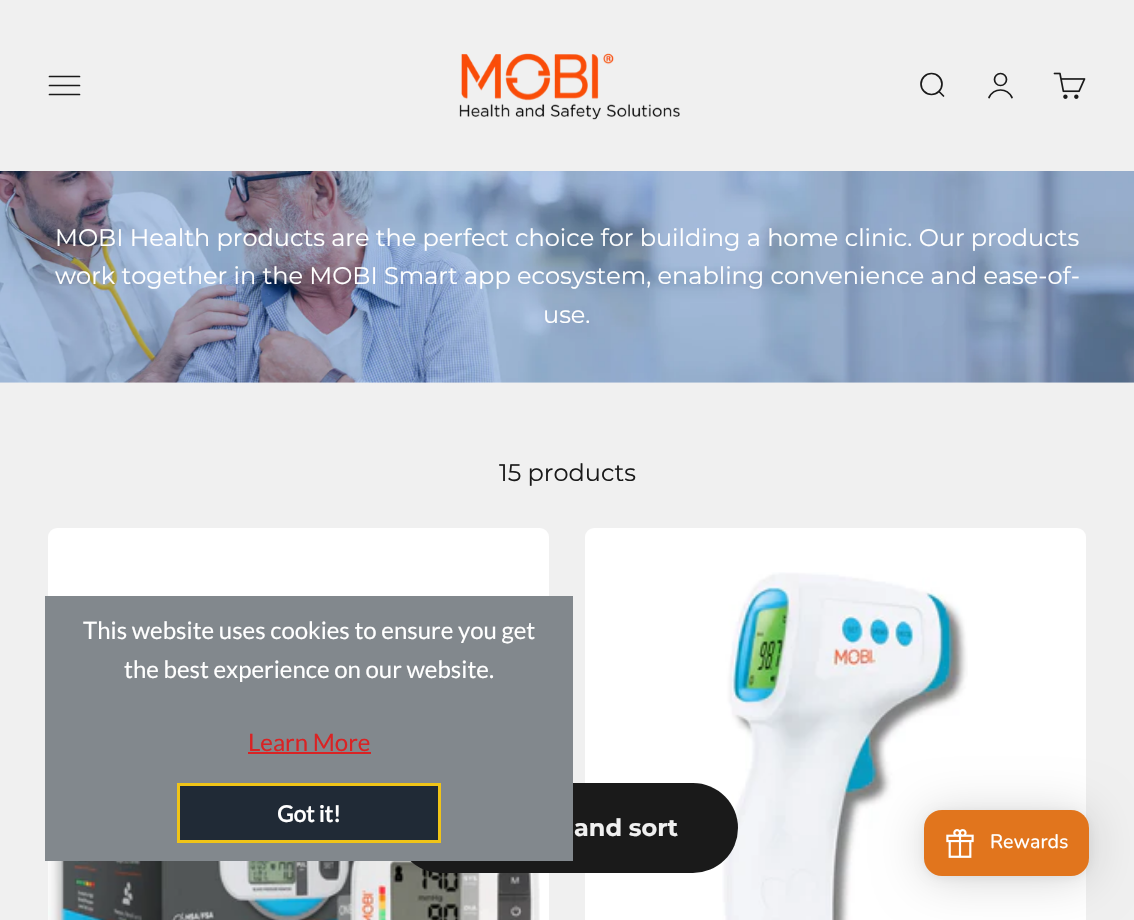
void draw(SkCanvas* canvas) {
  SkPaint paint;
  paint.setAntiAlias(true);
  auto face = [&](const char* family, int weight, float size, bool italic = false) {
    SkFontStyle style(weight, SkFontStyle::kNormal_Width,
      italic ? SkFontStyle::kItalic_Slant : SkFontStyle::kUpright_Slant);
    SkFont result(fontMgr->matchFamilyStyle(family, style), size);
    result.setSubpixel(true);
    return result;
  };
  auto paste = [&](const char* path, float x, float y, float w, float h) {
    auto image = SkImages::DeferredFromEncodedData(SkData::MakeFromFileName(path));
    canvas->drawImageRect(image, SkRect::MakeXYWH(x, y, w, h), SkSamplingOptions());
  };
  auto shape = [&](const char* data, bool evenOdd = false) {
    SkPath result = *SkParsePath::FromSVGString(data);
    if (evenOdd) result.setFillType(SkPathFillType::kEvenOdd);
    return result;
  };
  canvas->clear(0xfff0f0f0);
  paint.setStroke(true);
  paint.setStrokeWidth(1.7f);
  paint.setStrokeCap(SkPaint::kRound_Cap);
  paint.setColor(0xff1a1a1a);
  canvas->drawPath(shape("M49.5 76.5H79.5M49.5 85.5H79.5M49.5 94.5H79.5"), paint);
  paste("img/1.png", 459, 53, 221, 67);
  paint.setStrokeCap(SkPaint::kButt_Cap);
  canvas->drawCircle(931.5f, 84, 10.5f, paint);
  paint.setStrokeCap(SkPaint::kRound_Cap);
  paint.setStrokeJoin(SkPaint::kRound_Join);
  canvas->drawPath(shape("M939 91.5L943.5 96"), paint);
  paint.setStrokeCap(SkPaint::kButt_Cap);
  paint.setStrokeJoin(SkPaint::kMiter_Join);
  canvas->drawCircle(1000.5f, 79.5f, 6, paint);
  paint.setStrokeCap(SkPaint::kRound_Cap);
  canvas->drawPath(shape("M989 97.5C994 87.5 1007 87.5 1012 97.5"), paint);
  paste("img/2.png", 1053, 72, 33, 27);
  paste("img/3.png", 0, 171, 1134, 212);
  paint.setStroke(false);
  paint.setColor(0xffffffff);
  canvas->drawRoundRect(SkRect::MakeXYWH(48, 528, 501, 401), 9, 9, paint);
  paste("img/4.png", 48, 861, 492, 59);
  canvas->drawRoundRect(SkRect::MakeXYWH(585, 528, 501, 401), 9, 9, paint);
  paste("img/5.png", 722, 572, 246, 348);
  paint.setColor(0xff1a1a1a);
  canvas->drawRoundRect(SkRect::MakeXYWH(396, 783, 342, 90), 45, 45, paint);
  paint.setColor(0xff82888d);
  canvas->drawRect(SkRect::MakeXYWH(45, 596, 528, 265), paint);
  paint.setColor(0xffd92324);
  canvas->drawRect(SkRect::MakeXYWH(248, 752, 123, 2), paint);
  paint.setColor(0xff202a36);
  canvas->drawRect(SkRect::MakeXYWH(178.5f, 784.5f, 261, 57), paint);
  paint.setStroke(true);
  paint.setStrokeWidth(3);
  paint.setStrokeCap(SkPaint::kButt_Cap);
  paint.setColor(0xfff0c417);
  canvas->drawRect(SkRect::MakeXYWH(178.5f, 784.5f, 261, 57), paint);
  paint.setStroke(false);
  paint.setColor(0x29000000);
  paint.setMaskFilter(SkMaskFilter::MakeBlur(kNormal_SkBlurStyle, 24));
  canvas->drawRoundRect(SkRect::MakeXYWH(924, 813, 165, 66), 18, 18, paint);
  paint.setMaskFilter(nullptr);
  paint.setColor(0x0f000000);
  paint.setMaskFilter(SkMaskFilter::MakeBlur(kNormal_SkBlurStyle, 4.5f));
  canvas->drawRoundRect(SkRect::MakeXYWH(924, 812, 165, 66), 18, 18, paint);
  paint.setMaskFilter(nullptr);
  paint.setColor(0xffe1751d);
  canvas->drawRoundRect(SkRect::MakeXYWH(924, 810, 165, 66), 18, 18, paint);
  paste("img/6.png", 946, 829, 28, 29);
  auto f0 = face("Montserrat", 100, 24);
  paint.setColor(0xffffffff);
  {
    const struct { const char* s; float x, y; } items[] = {
      {"MOBI Health products are the perfect choice for building a home clinic. Our products", 55, 246},
      {"work together in the MOBI Smart app ecosystem, enabling convenience and ease-of-", 55, 284},
      {"use.", 543, 323},
    };
    for (auto [s, x, y] : items) {
      canvas->drawString(s, x, y, f0, paint);
    }
  }
  paint.setColor(0xff1a1a1a);
  canvas->drawString("15 products", 499, 481, f0, paint);
  auto f1 = face("Montserrat", 700, 24);
  paint.setColor(0xfff0f0f0);
  canvas->drawString("and sort", 574, 836, f1, paint);
  auto f2 = face("Lato", 400, 24);
  paint.setColor(0xffffffff);
  canvas->drawString("This website uses cookies to ensure you get", 83, 639, f2, paint);
  canvas->drawString("the best experience on our website.", 124, 678, f2, paint);
  paint.setColor(0xffd92324);
  canvas->drawString("Learn More", 248, 751, f2, paint);
  auto f3 = face("Lato", 700, 22.5f);
  paint.setColor(0xffffffff);
  canvas->drawString("Got it!", 277, 822, f3, paint);
  auto f4 = face("Nunito", 500, 19.5f);
  canvas->drawString("Rewards", 990, 848, f4, paint);
}
